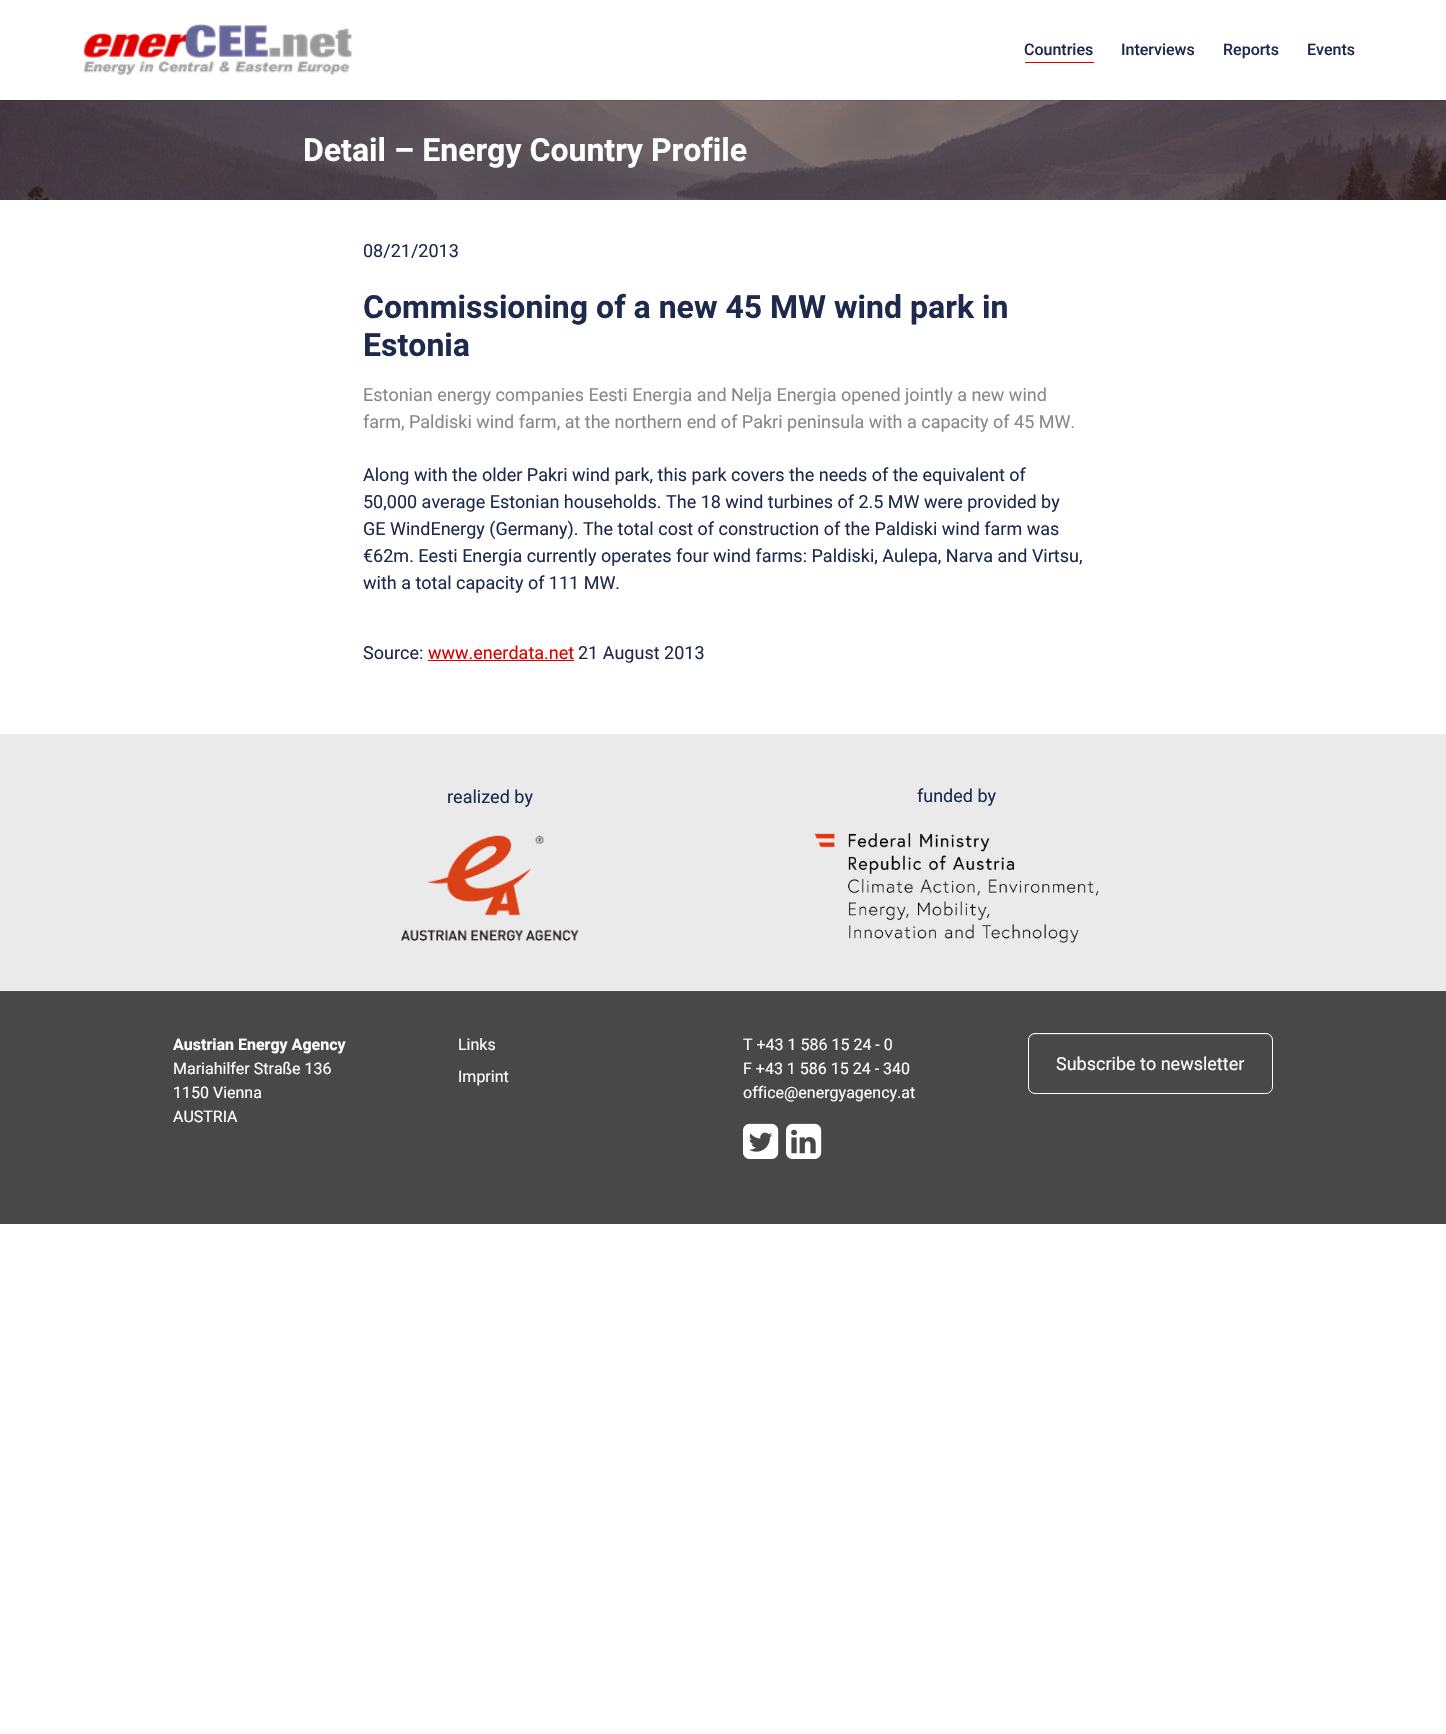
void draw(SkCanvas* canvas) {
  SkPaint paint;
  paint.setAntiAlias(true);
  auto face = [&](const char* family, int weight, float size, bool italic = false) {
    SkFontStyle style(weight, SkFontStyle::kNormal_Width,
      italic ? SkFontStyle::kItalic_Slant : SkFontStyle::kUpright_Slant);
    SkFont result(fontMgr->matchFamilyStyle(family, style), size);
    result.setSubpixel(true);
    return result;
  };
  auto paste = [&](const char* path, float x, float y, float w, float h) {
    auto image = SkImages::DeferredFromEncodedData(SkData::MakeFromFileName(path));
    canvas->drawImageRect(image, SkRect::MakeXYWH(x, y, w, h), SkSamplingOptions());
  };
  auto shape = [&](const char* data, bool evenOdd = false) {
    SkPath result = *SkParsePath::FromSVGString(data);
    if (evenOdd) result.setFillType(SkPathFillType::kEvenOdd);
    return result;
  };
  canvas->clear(0xffffffff);
  paste("img/2.png", 0, 100, 1446, 100);
  paint.setColor(0x26000000);
  canvas->drawRect(SkRect::MakeXYWH(0, 100, 1446, 1), paint);
  paste("img/1.png", 83, 24, 270, 51);
  {
    const struct { float x, y, w, h; SkColor color; } items[] = {
      {1025, 62, 69, 1, 0xffdd0000},
      {428, 660, 146, 1, 0xffdd0000},
      {0, 734, 1446, 257, 0xffeaeaea},
    };
    for (auto [x, y, w, h, color] : items) {
      paint.setColor(color);
      canvas->drawRect(SkRect::MakeXYWH(x, y, w, h), paint);
    }
  }
  paste("img/3.png", 401, 835, 178, 106);
  paste("img/4.png", 814, 833, 285, 110);
  paint.setColor(0xff484848);
  canvas->drawRect(SkRect::MakeXYWH(0, 991, 1446, 233), paint);
  paste("img/5.png", 743, 1123, 36, 36);
  paste("img/6.png", 786, 1123, 36, 36);
  paint.setColor(0xff636363);
  canvas->drawPath(shape("M1035 1035H1266C1269 1035 1272 1038 1272 1041C1272 1037 1270 1034 1266 1034H1034C1030 1035 1029 1038 1029 1041C1029 1038 1032 1035 1035 1035Z"), paint);
  paint.setStroke(true);
  paint.setStrokeWidth(1);
  paint.setColor(0xffffffff);
  canvas->drawRoundRect(SkRect::MakeXYWH(1028.5f, 1033.5f, 244, 60), 6.5f, 6.5f, paint);
  auto f0 = face("Roboto", 500, 16);
  paint.setStroke(false);
  paint.setColor(0xff1e2a4d);
  {
    const struct { const char* s; float x, y; } items[] = {
      {"Countries", 1024, 55},
      {"Interviews", 1121, 55},
      {"Reports", 1223, 55},
      {"Events", 1307, 55},
    };
    for (auto [s, x, y] : items) {
      canvas->drawString(s, x, y, f0, paint);
    }
  }
  auto f1 = face("Roboto", 700, 32);
  paint.setColor(0xffffffff);
  canvas->drawString("Detail – Energy Country Profile", 303, 161, f1, paint);
  auto f2 = face("Roboto", 400, 18);
  paint.setColor(0xff1e2a4d);
  canvas->drawString("08/21/2013", 363, 257, f2, paint);
  canvas->drawString("Commissioning of a new 45 MW wind park in", 363, 318, f1, paint);
  canvas->drawString("Estonia", 363, 356, f1, paint);
  paint.setColor(0xff888888);
  canvas->drawString("Estonian energy companies Eesti Energia and Nelja Energia opened jointly a new wind", 363, 401, f2, paint);
  canvas->drawString("farm, Paldiski wind farm, at the northern end of Pakri peninsula with a capacity of 45 MW.", 363, 428, f2, paint);
  paint.setColor(0xff1e2a4d);
  {
    const struct { const char* s; float x, y; } items[] = {
      {"Along with the older Pakri wind park, this park covers the needs of the equivalent of", 363, 481},
      {"50,000 average Estonian households. The 18 wind turbines of 2.5 MW were provided by", 363, 508},
      {"GE WindEnergy (Germany). The total cost of construction of the Paldiski wind farm was", 363, 535},
      {"€62m. Eesti Energia currently operates four wind farms: Paldiski, Aulepa, Narva and Virtsu,", 363, 562},
      {"with a total capacity of 111 MW.", 363, 589},
      {"Source:", 363, 659},
    };
    for (auto [s, x, y] : items) {
      canvas->drawString(s, x, y, f2, paint);
    }
  }
  paint.setColor(0xffdd0000);
  canvas->drawString("www.enerdata.net", 428, 659, f2, paint);
  paint.setColor(0xff1e2a4d);
  {
    const struct { const char* s; float x, y; } items[] = {
      {"21 August 2013", 578, 659},
      {"realized by", 447, 803},
      {"funded by", 917, 802},
    };
    for (auto [s, x, y] : items) {
      canvas->drawString(s, x, y, f2, paint);
    }
  }
  auto f3 = face("Roboto", 700, 16);
  paint.setColor(0xffffffff);
  canvas->drawString("Austrian Energy Agency", 173, 1050, f3, paint);
  auto f4 = face("Roboto", 400, 16);
  {
    const struct { const char* s; float x, y; } items[] = {
      {"Mariahilfer Straße 136", 173, 1074},
      {"1150 Vienna", 173, 1098},
      {"AUSTRIA", 173, 1122},
      {"Links", 458, 1050},
      {"Imprint", 458, 1082},
      {"T +43 1 586 15 24 - 0", 743, 1050},
      {"F +43 1 586 15 24 - 340", 743, 1074},
      {"office@energyagency.at", 743, 1098},
    };
    for (auto [s, x, y] : items) {
      canvas->drawString(s, x, y, f4, paint);
    }
  }
  canvas->drawString("Subscribe to newsletter", 1056, 1070, f2, paint);
}
